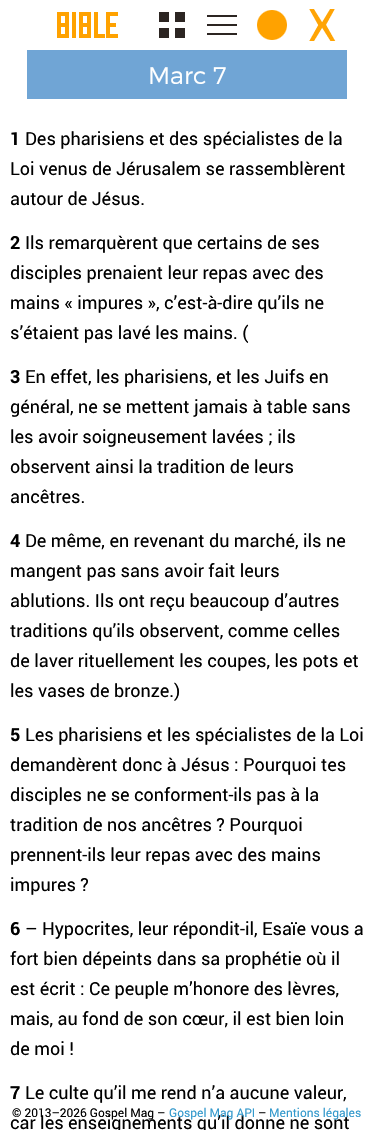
void draw(SkCanvas* canvas) {
  SkPaint paint;
  paint.setAntiAlias(true);
  auto face = [&](const char* family, int weight, float size, bool italic = false) {
    SkFontStyle style(weight, SkFontStyle::kNormal_Width,
      italic ? SkFontStyle::kItalic_Slant : SkFontStyle::kUpright_Slant);
    SkFont result(fontMgr->matchFamilyStyle(family, style), size);
    result.setSubpixel(true);
    return result;
  };
  auto paste = [&](const char* path, float x, float y, float w, float h) {
    auto image = SkImages::DeferredFromEncodedData(SkData::MakeFromFileName(path));
    canvas->drawImageRect(image, SkRect::MakeXYWH(x, y, w, h), SkSamplingOptions());
  };
  canvas->clear(0xffffffff);
  paste("img/1.png", 57, 12, 61, 26);
  paste("img/2.png", 159, 12, 26, 26);
  paste("img/3.png", 207, 15, 30, 20);
  paste("img/4.png", 257, 10, 30, 30);
  paste("img/5.png", 309, 9, 27, 32);
  paint.setColor(0xff70a5d5);
  canvas->drawRect(SkRect::MakeXYWH(27, 50, 320, 49), paint);
  auto f0 = face("Montserrat", 300, 24);
  paint.setColor(0xffffffff);
  canvas->drawString("Marc 7", 148, 84, f0, paint);
  auto f1 = face("Roboto", 700, 18);
  paint.setColor(0xff000000);
  canvas->drawString("1", 10, 145, f1, paint);
  auto f2 = face("Roboto", 400, 18);
  {
    const struct { const char* s; float x, y; } items[] = {
      {"Des pharisiens et des spécialistes de la", 25, 145},
      {"Loi venus de Jérusalem se rassemblèrent", 10, 175},
      {"autour de Jésus.", 10, 205},
    };
    for (auto [s, x, y] : items) {
      canvas->drawString(s, x, y, f2, paint);
    }
  }
  canvas->drawString("2", 10, 249, f1, paint);
  {
    const struct { const char* s; float x, y; } items[] = {
      {"Ils remarquèrent que certains de ses", 25, 249},
      {"disciples prenaient leur repas avec des", 10, 279},
      {"mains « impures », c’est-à-dire qu’ils ne", 10, 309},
      {"s’étaient pas lavé les mains. (", 10, 339},
    };
    for (auto [s, x, y] : items) {
      canvas->drawString(s, x, y, f2, paint);
    }
  }
  canvas->drawString("3", 10, 383, f1, paint);
  {
    const struct { const char* s; float x, y; } items[] = {
      {"En effet, les pharisiens, et les Juifs en", 25, 383},
      {"général, ne se mettent jamais à table sans", 10, 413},
      {"les avoir soigneusement lavées ; ils", 10, 443},
      {"observent ainsi la tradition de leurs", 10, 473},
      {"ancêtres.", 10, 503},
    };
    for (auto [s, x, y] : items) {
      canvas->drawString(s, x, y, f2, paint);
    }
  }
  canvas->drawString("4", 10, 547, f1, paint);
  {
    const struct { const char* s; float x, y; } items[] = {
      {"De même, en revenant du marché, ils ne", 25, 547},
      {"mangent pas sans avoir fait leurs", 10, 577},
      {"ablutions. Ils ont reçu beaucoup d’autres", 10, 607},
      {"traditions qu’ils observent, comme celles", 10, 637},
      {"de laver rituellement les coupes, les pots et", 10, 667},
      {"les vases de bronze.)", 10, 697},
    };
    for (auto [s, x, y] : items) {
      canvas->drawString(s, x, y, f2, paint);
    }
  }
  canvas->drawString("5", 10, 741, f1, paint);
  {
    const struct { const char* s; float x, y; } items[] = {
      {"Les pharisiens et les spécialistes de la Loi", 25, 741},
      {"demandèrent donc à Jésus : Pourquoi tes", 10, 771},
      {"disciples ne se conforment-ils pas à la", 10, 801},
      {"tradition de nos ancêtres ? Pourquoi", 10, 831},
      {"prennent-ils leur repas avec des mains", 10, 861},
      {"impures ?", 10, 891},
    };
    for (auto [s, x, y] : items) {
      canvas->drawString(s, x, y, f2, paint);
    }
  }
  canvas->drawString("6", 10, 935, f1, paint);
  {
    const struct { const char* s; float x, y; } items[] = {
      {"– Hypocrites, leur répondit-il, Esaïe vous a", 25, 935},
      {"fort bien dépeints dans sa prophétie où il", 10, 965},
      {"est écrit : Ce peuple m’honore des lèvres,", 10, 995},
      {"mais, au fond de son cœur, il est bien loin", 10, 1025},
      {"de moi !", 10, 1055},
    };
    for (auto [s, x, y] : items) {
      canvas->drawString(s, x, y, f2, paint);
    }
  }
  canvas->drawString("7", 10, 1099, f1, paint);
  canvas->drawString("Le culte qu’il me rend n’a aucune valeur,", 25, 1099, f2, paint);
  canvas->drawString("car les enseignements qu’il donne ne sont", 10, 1129, f2, paint);
  auto f3 = face("Roboto", 400, 12);
  canvas->drawString("© 2013–2026 Gospel Mag –", 12, 1117, f3, paint);
  paint.setColor(0xff3399cc);
  canvas->drawString("Gospel Mag API", 169, 1117, f3, paint);
  paint.setColor(0xff000000);
  canvas->drawString("–", 258, 1117, f3, paint);
  paint.setColor(0xff3399cc);
  canvas->drawString("Mentions légales", 269, 1117, f3, paint);
}
